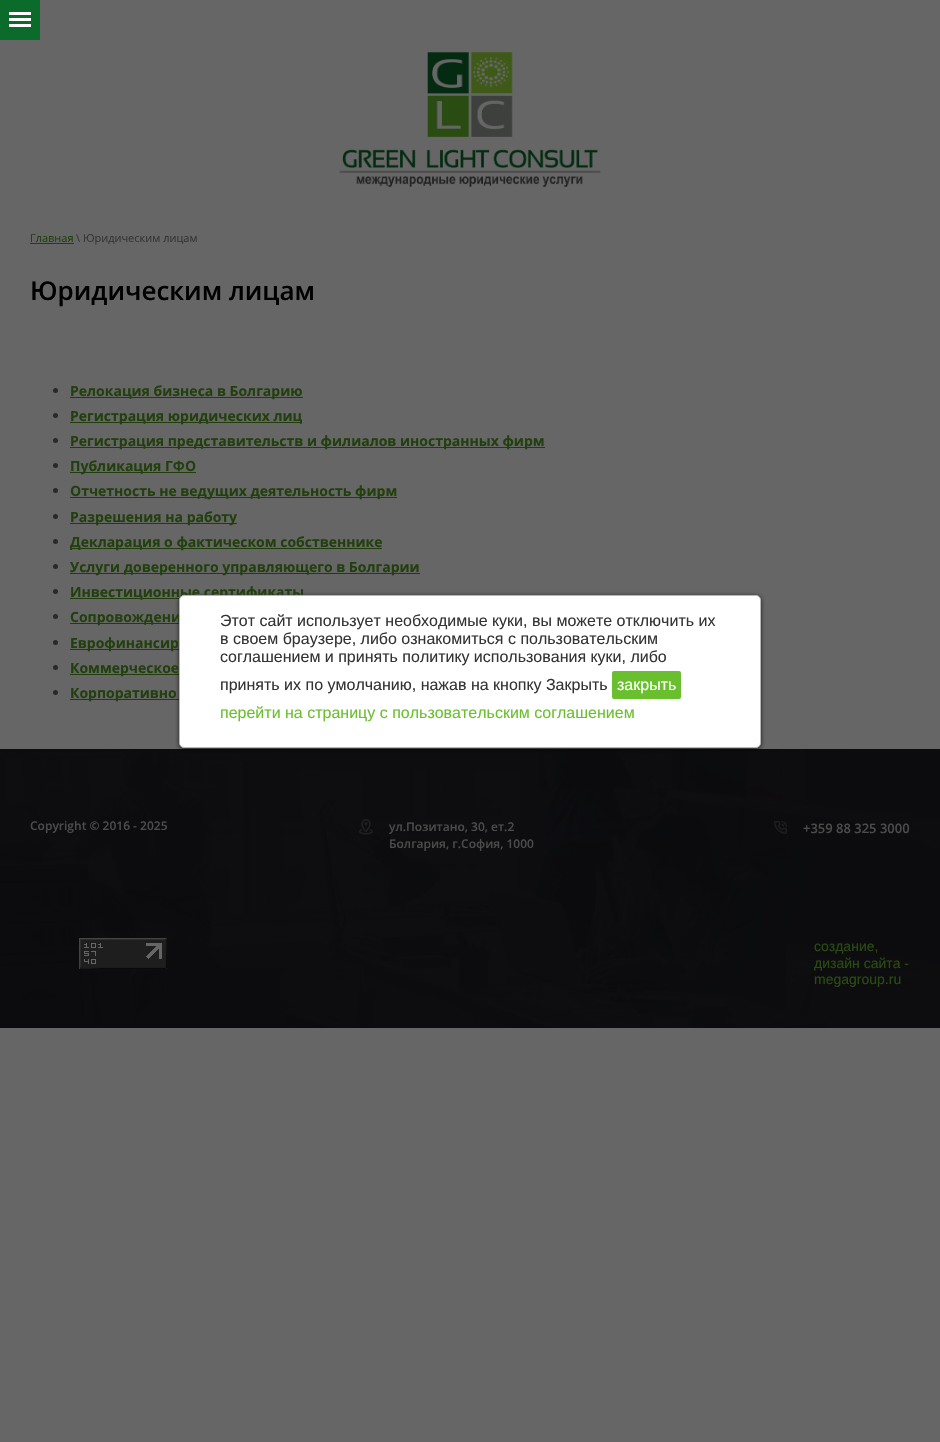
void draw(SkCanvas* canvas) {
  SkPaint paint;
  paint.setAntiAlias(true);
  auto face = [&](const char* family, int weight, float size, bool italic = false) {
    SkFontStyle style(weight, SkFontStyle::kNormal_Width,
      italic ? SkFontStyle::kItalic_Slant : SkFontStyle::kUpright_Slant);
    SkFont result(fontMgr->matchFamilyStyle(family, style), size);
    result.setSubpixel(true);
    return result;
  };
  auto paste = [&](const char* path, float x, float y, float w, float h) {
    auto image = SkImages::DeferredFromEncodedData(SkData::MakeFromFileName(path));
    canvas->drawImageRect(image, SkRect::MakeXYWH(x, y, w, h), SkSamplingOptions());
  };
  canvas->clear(0xff666666);
  {
    const struct { float x, y, w, h; SkColor color; } items[] = {
      {0, 0, 40, 40, 0xff0a6b2a},
      {9, 12, 22, 3, 0xffffffff},
      {9, 18, 22, 3, 0xffffffff},
      {9, 24, 22, 3, 0xffffffff},
    };
    for (auto [x, y, w, h, color] : items) {
      paint.setColor(color);
      canvas->drawRect(SkRect::MakeXYWH(x, y, w, h), paint);
    }
  }
  paste("img/1.png", 339, 52, 262, 136);
  paint.setColor(0xff22400d);
  canvas->drawRect(SkRect::MakeXYWH(30, 243, 44, 1), paint);
  paint.setColor(0xff292929);
  canvas->drawCircle(55.5f, 390.5f, 2.5f, paint);
  paint.setColor(0xff223d0c);
  canvas->drawRect(SkRect::MakeXYWH(70, 397, 233, 1), paint);
  paint.setColor(0xff292929);
  canvas->drawCircle(55.5f, 415.5f, 2.5f, paint);
  paint.setColor(0xff223d0c);
  canvas->drawRect(SkRect::MakeXYWH(70, 422, 232, 1), paint);
  paint.setColor(0xff292929);
  canvas->drawCircle(55.5f, 440.5f, 2.5f, paint);
  paint.setColor(0xff223d0c);
  canvas->drawRect(SkRect::MakeXYWH(70, 447, 475, 1), paint);
  paint.setColor(0xff292929);
  canvas->drawCircle(55.5f, 465.5f, 2.5f, paint);
  paint.setColor(0xff223d0c);
  canvas->drawRect(SkRect::MakeXYWH(70, 472, 126, 1), paint);
  paint.setColor(0xff292929);
  canvas->drawCircle(55.5f, 490.5f, 2.5f, paint);
  paint.setColor(0xff223d0c);
  canvas->drawRect(SkRect::MakeXYWH(70, 497, 327, 1), paint);
  paint.setColor(0xff292929);
  canvas->drawCircle(55.5f, 516.5f, 2.5f, paint);
  paint.setColor(0xff223d0c);
  canvas->drawRect(SkRect::MakeXYWH(70, 523, 167, 1), paint);
  paint.setColor(0xff292929);
  canvas->drawCircle(55.5f, 541.5f, 2.5f, paint);
  paint.setColor(0xff223d0c);
  canvas->drawRect(SkRect::MakeXYWH(70, 548, 312, 1), paint);
  paint.setColor(0xff292929);
  canvas->drawCircle(55.5f, 566.5f, 2.5f, paint);
  paint.setColor(0xff223d0c);
  canvas->drawRect(SkRect::MakeXYWH(70, 573, 350, 1), paint);
  paint.setColor(0xff292929);
  canvas->drawCircle(55.5f, 591.5f, 2.5f, paint);
  paint.setColor(0xff223d0c);
  canvas->drawRect(SkRect::MakeXYWH(70, 598, 110, 1), paint);
  paint.setColor(0xff292929);
  canvas->drawCircle(55.5f, 616.5f, 2.5f, paint);
  paint.setColor(0xff223d0c);
  canvas->drawRect(SkRect::MakeXYWH(70, 623, 109, 1), paint);
  paint.setColor(0xff292929);
  canvas->drawCircle(55.5f, 642.5f, 2.5f, paint);
  paint.setColor(0xff223d0c);
  canvas->drawRect(SkRect::MakeXYWH(70, 649, 109, 1), paint);
  paint.setColor(0xff292929);
  canvas->drawCircle(55.5f, 667.5f, 2.5f, paint);
  paint.setColor(0xff223d0c);
  canvas->drawRect(SkRect::MakeXYWH(70, 674, 109, 1), paint);
  paint.setColor(0xff292929);
  canvas->drawCircle(55.5f, 692.5f, 2.5f, paint);
  paint.setColor(0xff223d0c);
  canvas->drawRect(SkRect::MakeXYWH(70, 699, 109, 1), paint);
  paste("img/2.png", 0, 749, 940, 279);
  paste("img/3.png", 359, 819, 14, 16);
  paste("img/4.png", 774, 821, 13, 13);
  paste("img/5.png", 79, 938, 88, 31);
  paint.setColor(0xb3000000);
  paint.setMaskFilter(SkMaskFilter::MakeBlur(kNormal_SkBlurStyle, 2));
  canvas->drawRoundRect(SkRect::MakeXYWH(179, 596, 582, 153), 5, 5, paint);
  paint.setMaskFilter(nullptr);
  auto f0 = face("Open Sans", 400, 11);
  paint.setColor(0xff22400d);
  canvas->drawString("Главная", 30, 242, f0, paint);
  paint.setColor(0xff343434);
  canvas->drawString("\\ Юридическим лицам", 76, 242, f0, paint);
  auto f1 = face("Open Sans", 600, 26);
  paint.setColor(0xff000000);
  canvas->drawString("Юридическим лицам", 30, 300, f1, paint);
  auto f2 = face("Open Sans", 700, 14);
  paint.setColor(0xff22400d);
  {
    const struct { const char* s; float x, y; } items[] = {
      {"Релокация бизнеса в Болгарию", 70, 396},
      {"Регистрация юридических лиц", 70, 421},
      {"Регистрация представительств и филиалов иностранных фирм", 70, 446},
      {"Публикация ГФО", 70, 471},
      {"Отчетность не ведущих деятельность фирм", 70, 496},
      {"Разрешения на работу", 70, 522},
      {"Декларация о фактическом собственнике", 70, 547},
      {"Услуги доверенного управляющего в Болгарии", 70, 572},
      {"Инвестиционные сертификаты", 70, 597},
      {"Сопровождени", 70, 622},
      {"Еврофинансир", 70, 648},
      {"Коммерческое", 70, 673},
      {"Корпоративно", 70, 698},
    };
    for (auto [s, x, y] : items) {
      canvas->drawString(s, x, y, f2, paint);
    }
  }
  auto f3 = face("Open Sans", 600, 12);
  paint.setColor(0xff4b4b4c);
  {
    const struct { const char* s; float x, y; } items[] = {
      {"Copyright © 2016 - 2025", 30, 830},
      {"ул.Позитано, 30, ет.2", 389, 831},
      {"Болгария, г.София, 1000", 389, 848},
    };
    for (auto [s, x, y] : items) {
      canvas->drawString(s, x, y, f3, paint);
    }
  }
  auto f4 = face("Open Sans", 600, 13);
  canvas->drawString("+359 88 325 3000", 803, 833, f4, paint);
  auto f5 = face("Liberation Sans", 400, 14);
  paint.setColor(0xff2a4c12);
  {
    const struct { const char* s; float x, y; } items[] = {
      {"создание,", 814, 951},
      {"дизайн сайта -", 814, 968},
      {"megagroup.ru", 814, 984},
    };
    for (auto [s, x, y] : items) {
      canvas->drawString(s, x, y, f5, paint);
    }
  }
  paint.setColor(0xffffffff);
  canvas->drawRoundRect(SkRect::MakeXYWH(179.5f, 595.5f, 581, 152), 4.5f, 4.5f, paint);
  paint.setStroke(true);
  paint.setStrokeWidth(1);
  paint.setColor(0xffb7b7b7);
  canvas->drawRoundRect(SkRect::MakeXYWH(179.5f, 595.5f, 581, 152), 4.5f, 4.5f, paint);
  auto f6 = face("Liberation Sans", 400, 16);
  paint.setStroke(false);
  paint.setColor(0xff343434);
  {
    const struct { const char* s; float x, y; } items[] = {
      {"Этот сайт использует необходимые куки, вы можете отключить их", 220, 626},
      {"в своем браузере, либо ознакомиться с пользовательским", 220, 644},
      {"соглашением и принять политику использования куки, либо", 220, 662},
      {"принять их по умолчанию, нажав на кнопку Закрыть", 220, 690},
    };
    for (auto [s, x, y] : items) {
      canvas->drawString(s, x, y, f6, paint);
    }
  }
  paint.setColor(0xff6abf2e);
  canvas->drawRoundRect(SkRect::MakeXYWH(612, 671, 69, 28), 2, 2, paint);
  paint.setColor(0xffffffff);
  canvas->drawString("закрыть", 617, 690, f6, paint);
  paint.setColor(0xff6abf2e);
  canvas->drawString("перейти на страницу с пользовательским соглашением", 220, 718, f6, paint);
}
